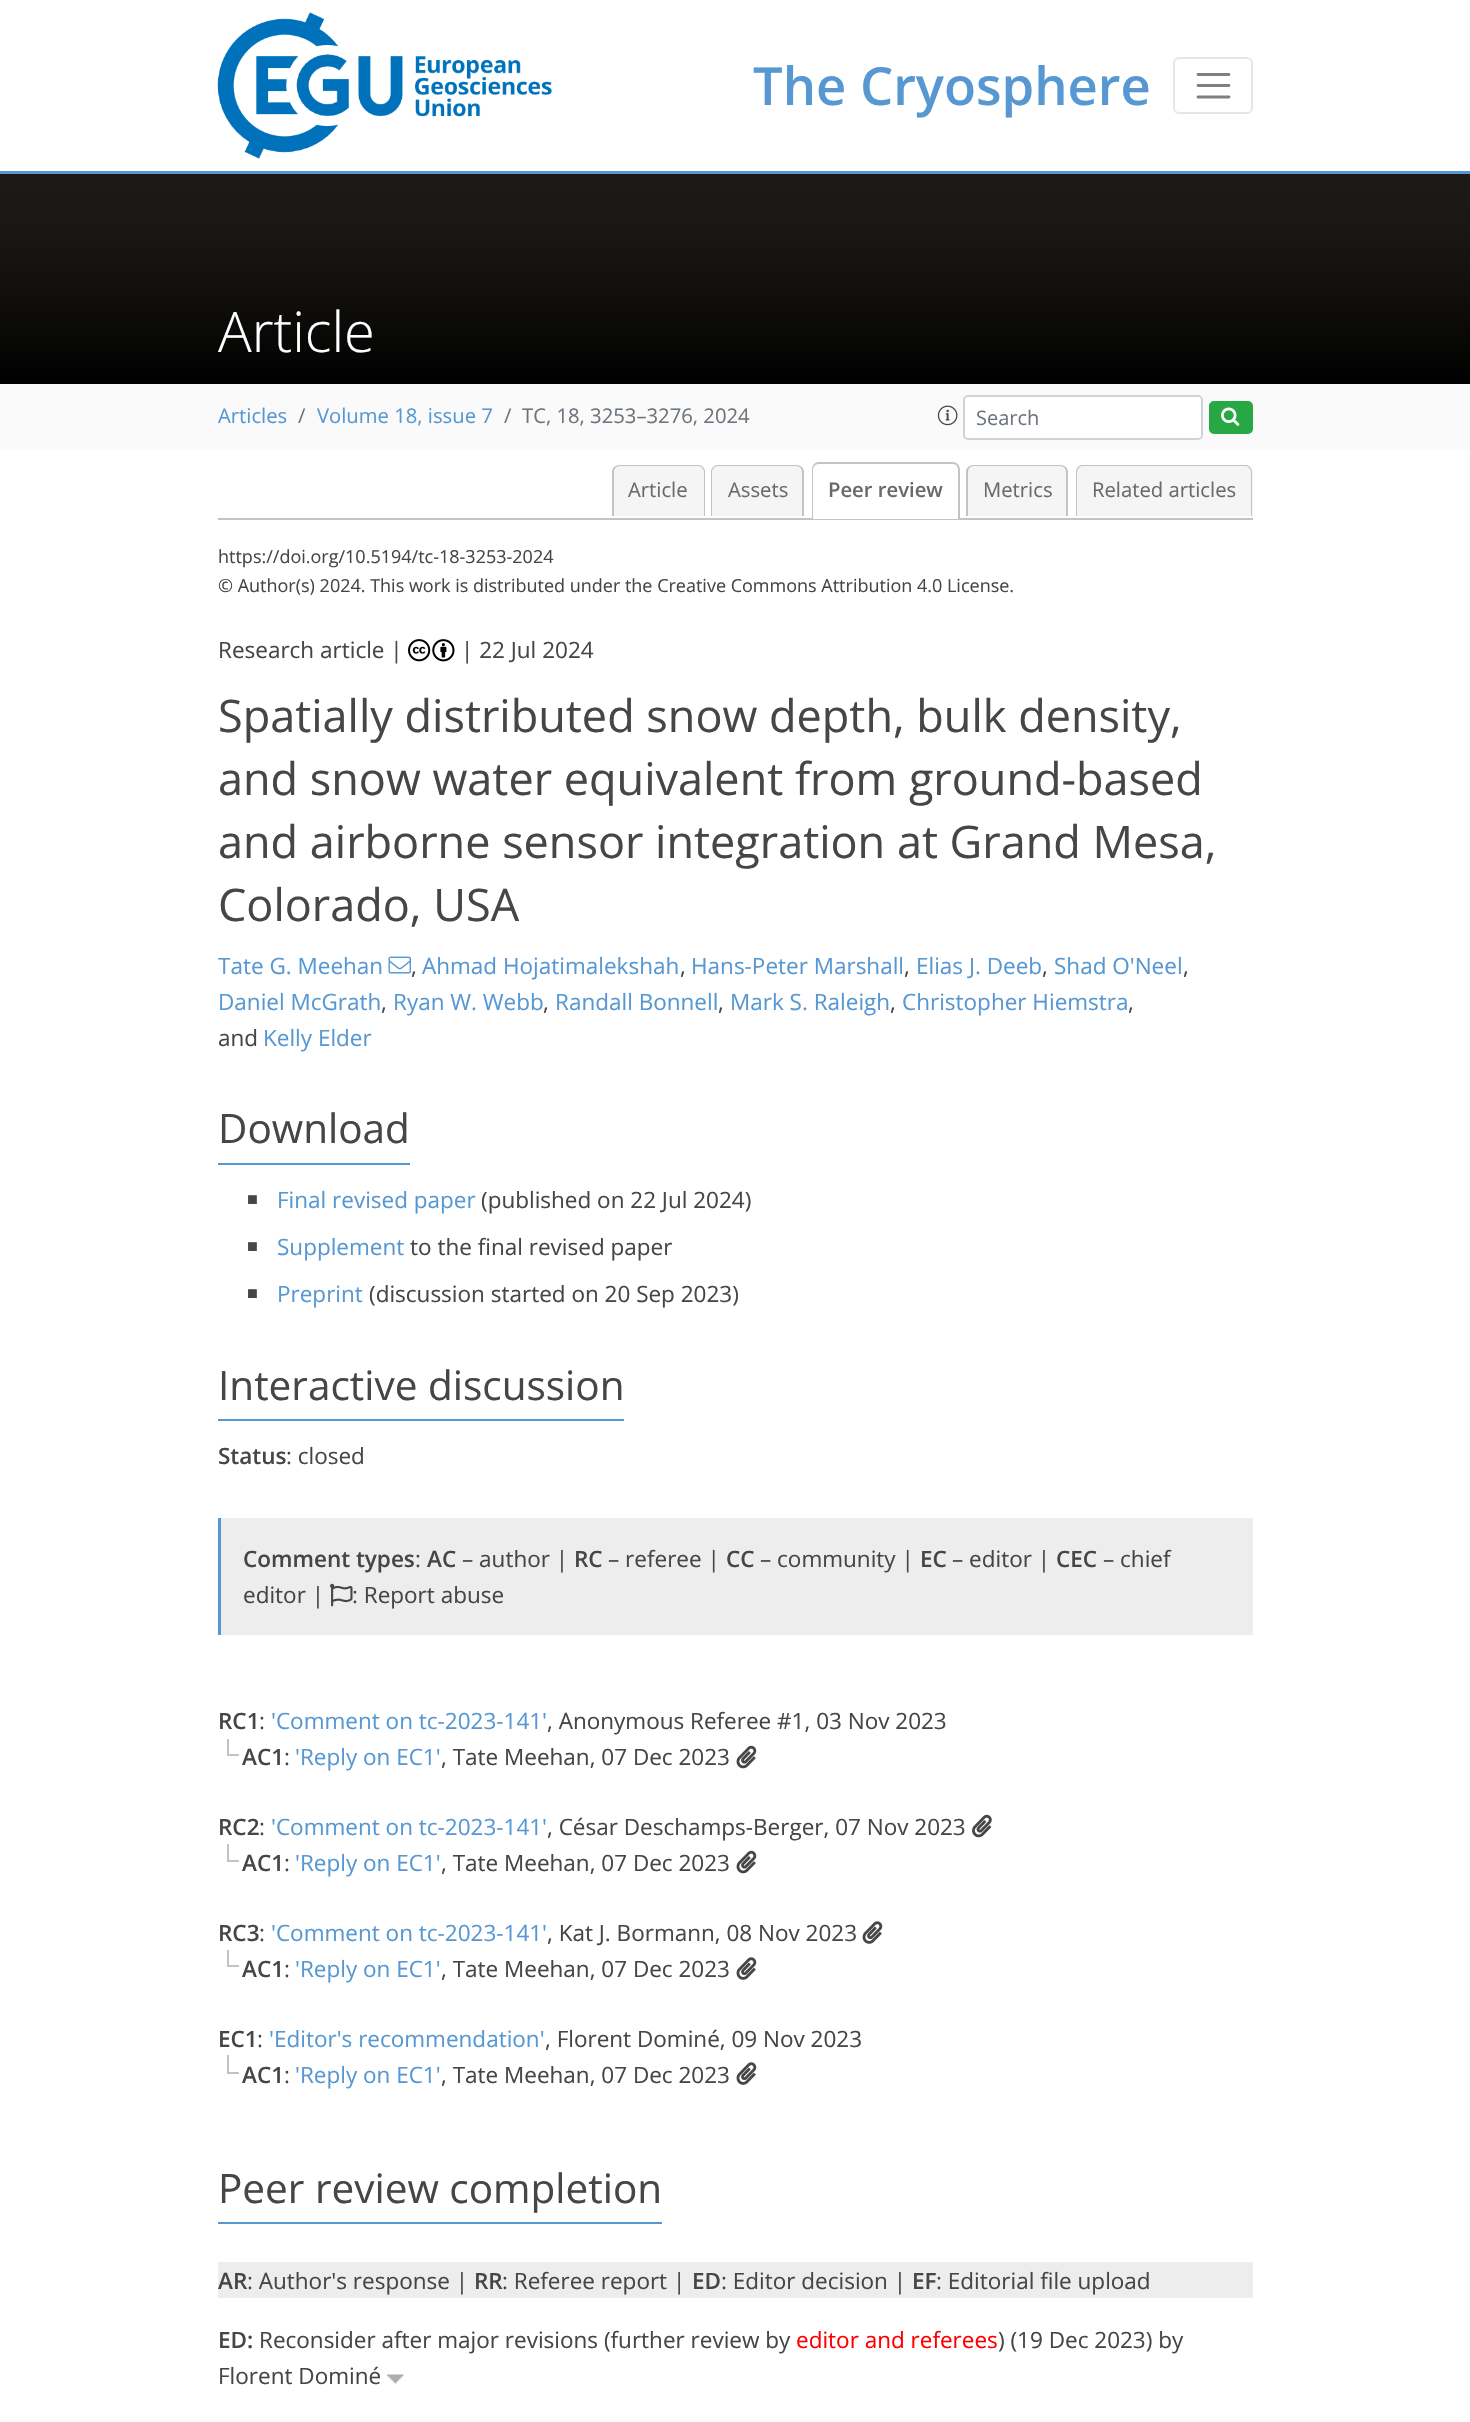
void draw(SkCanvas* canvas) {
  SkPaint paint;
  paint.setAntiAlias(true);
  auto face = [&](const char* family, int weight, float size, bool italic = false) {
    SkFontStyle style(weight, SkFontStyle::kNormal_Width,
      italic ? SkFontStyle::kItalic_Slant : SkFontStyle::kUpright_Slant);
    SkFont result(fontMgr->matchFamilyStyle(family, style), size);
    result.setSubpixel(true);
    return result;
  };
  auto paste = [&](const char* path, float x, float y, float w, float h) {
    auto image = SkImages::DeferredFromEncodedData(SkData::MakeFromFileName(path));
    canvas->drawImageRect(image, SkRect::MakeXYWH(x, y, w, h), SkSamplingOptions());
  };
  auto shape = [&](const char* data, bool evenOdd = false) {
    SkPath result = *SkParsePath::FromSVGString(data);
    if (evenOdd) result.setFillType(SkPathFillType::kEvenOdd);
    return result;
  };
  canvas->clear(0xffffffff);
  paste("img/1.png", 217, 12, 335, 147);
  paint.setStroke(true);
  paint.setStrokeWidth(2);
  paint.setColor(0xffe6e6e6);
  canvas->drawRoundRect(SkRect::MakeXYWH(1174, 58, 78, 55), 5, 5, paint);
  paint.setStrokeWidth(2.8f);
  paint.setStrokeCap(SkPaint::kRound_Cap);
  paint.setColor(0xff808080);
  canvas->drawPath(shape("M1198 74.5H1229M1198 85.5H1229M1198 97H1229"), paint);
  paint.setStroke(false);
  paint.setColor(0xff5798d2);
  canvas->drawRect(SkRect::MakeXYWH(0, 171, 1470, 3), paint);
  {
    const SkColor colors[] = {0xff000000, 0xff070706, 0xff0d0c0b, 0xff11100e, 0xff141311, 0xff171513, 0xff191714, 0xff1a1815, 0xff1b1916, 0xff1b1917, 0xff1c1a17, 0xff1c1a17};
    const float stops[] = {0, 0.19f, 0.34f, 0.47f, 0.56f, 0.65f, 0.73f, 0.8f, 0.86f, 0.91f, 0.95f, 1};
    const SkPoint ends[] = {{735, 384}, {735, 174}};
    paint.setShader(SkGradientShader::MakeLinear(ends, colors, stops, 12, SkTileMode::kClamp));
    paint.setAlpha(255);
  }
  canvas->drawRect(SkRect::MakeXYWH(0, 174, 1470, 210), paint);
  paint.setShader(nullptr);
  paint.setColor(0xfffafafa);
  canvas->drawRect(SkRect::MakeXYWH(0, 384, 1470, 66), paint);
  paste("img/2.png", 937, 405, 21, 21);
  paint.setColor(0xffffffff);
  canvas->drawRoundRect(SkRect::MakeXYWH(964, 396, 238, 43), 4, 4, paint);
  paint.setStroke(true);
  paint.setStrokeWidth(2);
  paint.setStrokeCap(SkPaint::kButt_Cap);
  paint.setColor(0xffced4da);
  canvas->drawRoundRect(SkRect::MakeXYWH(964, 396, 238, 43), 4, 4, paint);
  paint.setStroke(false);
  paint.setColor(0xff28a745);
  canvas->drawRoundRect(SkRect::MakeXYWH(1210, 402, 42, 31), 4, 4, paint);
  paint.setStroke(true);
  canvas->drawRoundRect(SkRect::MakeXYWH(1210, 402, 42, 31), 4, 4, paint);
  paste("img/3.png", 1221, 407, 19, 19);
  paint.setStroke(false);
  paint.setColor(0xffc3c3c3);
  canvas->drawRect(SkRect::MakeXYWH(218, 518, 1035, 2), paint);
  paint.setColor(0xfff5f5f5);
  canvas->drawPath(shape("M620 465H697C701.5 465 705 468.5 705 473V516H612V473C612 468.5 615.5 465 620 465Z"), paint);
  paint.setColor(0xffc3c3c3);
  canvas->drawPath(shape("M620 465H698C702 465 705 468 705 472V516H612V472C612 468 615 465 620 465ZM620 466H698C701 466 704 469 704 472V516H614V472C614 469 616 466 620 466Z", true), paint);
  paint.setColor(0xfff5f5f5);
  canvas->drawPath(shape("M719 465H796C800.5 465 804 468.5 804 473V516H711V473C711 468.5 714.5 465 719 465Z"), paint);
  paint.setColor(0xffc3c3c3);
  canvas->drawPath(shape("M718 465H796C801 465 804 468 804 472V516H711V472C711 468 714 465 718 465ZM718 466H796C800 466 802 469 802 472V516H712V472C712 469 715 466 718 466Z", true), paint);
  paint.setColor(0xffffffff);
  canvas->drawPath(shape("M820 462H952C956.5 462 960 465.5 960 470V519H812V470C812 465.5 815.5 462 820 462Z"), paint);
  paint.setColor(0xffc3c3c3);
  canvas->drawPath(shape("M819 462H952C957 462 960 465 960 470V519H812V470C812 465 815 462 819 462ZM819 464H952C956 464 958 466 958 470V519H813V470C813 466 816 464 819 464Z", true), paint);
  paint.setColor(0xfff5f5f5);
  canvas->drawPath(shape("M974 465H1060C1064.5 465 1068 468.5 1068 473V516H966V473C966 468.5 969.5 465 974 465Z"), paint);
  paint.setColor(0xffc3c3c3);
  canvas->drawPath(shape("M974 465H1060C1065 465 1068 468 1068 472V516H966V472C966 468 969 465 974 465ZM974 466H1060C1064 466 1066 469 1066 472V516H968V472C968 469 970 466 974 466Z", true), paint);
  paint.setColor(0xfff5f5f5);
  canvas->drawPath(shape("M1084 465H1245C1249.5 465 1253 468.5 1253 473V516H1076V473C1076 468.5 1079.5 465 1084 465Z"), paint);
  paint.setColor(0xffc3c3c3);
  canvas->drawPath(shape("M1083 465H1245C1249 465 1252 468 1252 472V516H1076V472C1076 468 1079 465 1083 465ZM1083 466H1245C1248 466 1251 469 1251 472V516H1077V472C1077 469 1080 466 1083 466Z", true), paint);
  paste("img/4.png", 408, 639, 47, 23);
  paste("img/5.png", 388, 956, 23, 18);
  {
    const struct { float x, y, w, h; SkColor color; } items[] = {
      {218, 1163, 192, 2, 0xff5798d2},
      {218, 1419, 406, 2, 0xff5798d2},
      {221, 1518, 1032, 117, 0xffededed},
      {218, 1518, 3, 117, 0xff5798d2},
    };
    for (auto [x, y, w, h, color] : items) {
      paint.setColor(color);
      canvas->drawRect(SkRect::MakeXYWH(x, y, w, h), paint);
    }
  }
  paste("img/6.png", 330, 1583, 23, 24);
  paint.setColor(0xffc3c3c3);
  canvas->drawRect(SkRect::MakeXYWH(227, 1754, 12, 2), paint);
  canvas->drawRect(SkRect::MakeXYWH(227, 1739, 2, 16), paint);
  paste("img/7.png", 736, 1745, 21, 24);
  paste("img/8.png", 972, 1814, 20, 24);
  canvas->drawRect(SkRect::MakeXYWH(227, 1860, 12, 2), paint);
  canvas->drawRect(SkRect::MakeXYWH(227, 1844, 2, 18), paint);
  paste("img/7.png", 736, 1850, 21, 24);
  paste("img/9.png", 862, 1921, 21, 23);
  canvas->drawRect(SkRect::MakeXYWH(227, 1965, 12, 2), paint);
  canvas->drawRect(SkRect::MakeXYWH(227, 1950, 2, 17), paint);
  paste("img/9.png", 736, 1957, 21, 23);
  canvas->drawRect(SkRect::MakeXYWH(227, 2072, 12, 2), paint);
  canvas->drawRect(SkRect::MakeXYWH(227, 2055, 2, 18), paint);
  paste("img/9.png", 736, 2062, 21, 23);
  paint.setColor(0xff5798d2);
  canvas->drawRect(SkRect::MakeXYWH(218, 2222, 444, 2), paint);
  paint.setColor(0xffededed);
  canvas->drawRect(SkRect::MakeXYWH(218, 2262, 1035, 36), paint);
  paste("img/10.png", 387, 2374, 17, 10);
  auto f0 = face("Open Sans", 600, 52.5f);
  paint.setColor(0xff5798d2);
  canvas->drawString("The Cryosphere", 753, 105, f0, paint);
  auto f1 = face("Open Sans", 300, 56);
  paint.setColor(0xffffffff);
  canvas->drawString("Article", 218, 352, f1, paint);
  auto f2 = face("Open Sans", 400, 20.25f);
  paint.setColor(0xff5798d2);
  canvas->drawString("Articles", 218, 423, f2, paint);
  paint.setColor(0xff6c757d);
  canvas->drawString("/", 298, 423, f2, paint);
  paint.setColor(0xff5798d2);
  canvas->drawString("Volume 18, issue 7", 317, 423, f2, paint);
  paint.setColor(0xff6c757d);
  canvas->drawString("/", 504, 423, f2, paint);
  canvas->drawString("TC, 18, 3253–3276, 2024", 522, 423, f2, paint);
  auto f3 = face("Open Sans", 400, 20);
  canvas->drawString("Search", 976, 425, f3, paint);
  paint.setColor(0xff6a6a6a);
  canvas->drawString("Article", 628, 497, f2, paint);
  canvas->drawString("Assets", 728, 497, f2, paint);
  auto f4 = face("Open Sans", 600, 20.25f);
  canvas->drawString("Peer review", 828, 497, f4, paint);
  canvas->drawString("Metrics", 983, 497, f2, paint);
  canvas->drawString("Related articles", 1092, 497, f2, paint);
  auto f5 = face("Open Sans", 400, 18);
  paint.setColor(0xff464646);
  canvas->drawString("https://doi.org/10.5194/tc-18-3253-2024", 218, 563, f5, paint);
  canvas->drawString("© Author(s) 2024. This work is distributed under the Creative Commons Attribution 4.0 License.", 218, 592, f5, paint);
  auto f6 = face("Open Sans", 400, 22.5f);
  canvas->drawString("Research article |", 218, 658, f6, paint);
  canvas->drawString("| 22 Jul 2024", 461, 658, f6, paint);
  auto f7 = face("Open Sans", 400, 45);
  {
    const struct { const char* s; float x, y; } items[] = {
      {"Spatially distributed snow depth, bulk density,", 218, 732},
      {"and snow water equivalent from ground-based", 218, 795},
      {"and airborne sensor integration at Grand Mesa,", 218, 858},
      {"Colorado, USA", 218, 921},
    };
    for (auto [s, x, y] : items) {
      canvas->drawString(s, x, y, f7, paint);
    }
  }
  paint.setColor(0xff5798d2);
  canvas->drawString("Tate G. Meehan", 218, 974, f6, paint);
  paint.setColor(0xff464646);
  canvas->drawString(",", 411, 974, f6, paint);
  paint.setColor(0xff5798d2);
  canvas->drawString("Ahmad Hojatimalekshah", 422, 974, f6, paint);
  paint.setColor(0xff464646);
  canvas->drawString(",", 680, 974, f6, paint);
  paint.setColor(0xff5798d2);
  canvas->drawString("Hans-Peter Marshall", 691, 974, f6, paint);
  paint.setColor(0xff464646);
  canvas->drawString(",", 904, 974, f6, paint);
  paint.setColor(0xff5798d2);
  canvas->drawString("Elias J. Deeb", 916, 974, f6, paint);
  paint.setColor(0xff464646);
  canvas->drawString(",", 1042, 974, f6, paint);
  paint.setColor(0xff5798d2);
  canvas->drawString("Shad O'Neel", 1054, 974, f6, paint);
  paint.setColor(0xff464646);
  canvas->drawString(",", 1183, 974, f6, paint);
  paint.setColor(0xff5798d2);
  canvas->drawString("Daniel McGrath", 218, 1010, f6, paint);
  paint.setColor(0xff464646);
  canvas->drawString(",", 381, 1010, f6, paint);
  paint.setColor(0xff5798d2);
  canvas->drawString("Ryan W. Webb", 393, 1010, f6, paint);
  paint.setColor(0xff464646);
  canvas->drawString(",", 543, 1010, f6, paint);
  paint.setColor(0xff5798d2);
  canvas->drawString("Randall Bonnell", 555, 1010, f6, paint);
  paint.setColor(0xff464646);
  canvas->drawString(",", 718, 1010, f6, paint);
  paint.setColor(0xff5798d2);
  canvas->drawString("Mark S. Raleigh", 730, 1010, f6, paint);
  paint.setColor(0xff464646);
  canvas->drawString(",", 890, 1010, f6, paint);
  paint.setColor(0xff5798d2);
  canvas->drawString("Christopher Hiemstra", 902, 1010, f6, paint);
  paint.setColor(0xff464646);
  canvas->drawString(",", 1128, 1010, f6, paint);
  canvas->drawString("and", 218, 1046, f6, paint);
  paint.setColor(0xff5798d2);
  canvas->drawString("Kelly Elder", 263, 1046, f6, paint);
  auto f8 = face("Open Sans", 400, 40.5f);
  paint.setColor(0xff464646);
  canvas->drawString("Download", 218, 1143, f8, paint);
  auto f9 = face("Liberation Sans", 400, 18);
  canvas->drawString("■", 247, 1205, f9, paint);
  paint.setColor(0xff5798d2);
  canvas->drawString("Final revised paper", 277, 1208, f6, paint);
  paint.setColor(0xff464646);
  canvas->drawString("(published on 22 Jul 2024)", 481, 1208, f6, paint);
  canvas->drawString("■", 247, 1252, f9, paint);
  paint.setColor(0xff5798d2);
  canvas->drawString("Supplement", 277, 1255, f6, paint);
  paint.setColor(0xff464646);
  canvas->drawString("to the final revised paper", 410, 1255, f6, paint);
  canvas->drawString("■", 247, 1299, f9, paint);
  paint.setColor(0xff5798d2);
  canvas->drawString("Preprint", 277, 1302, f6, paint);
  paint.setColor(0xff464646);
  canvas->drawString("(discussion started on 20 Sep 2023)", 369, 1302, f6, paint);
  canvas->drawString("Interactive discussion", 218, 1400, f8, paint);
  auto f10 = face("Open Sans", 600, 22.5f);
  canvas->drawString("Status", 218, 1464, f10, paint);
  canvas->drawString(": closed", 286, 1464, f6, paint);
  canvas->drawString("Comment types", 243, 1567, f10, paint);
  canvas->drawString(":", 415, 1567, f6, paint);
  canvas->drawString("AC", 427, 1567, f10, paint);
  canvas->drawString("– author |", 462, 1567, f6, paint);
  canvas->drawString("RC", 574, 1567, f10, paint);
  canvas->drawString("– referee |", 608, 1567, f6, paint);
  canvas->drawString("CC", 726, 1567, f10, paint);
  canvas->drawString("– community |", 760, 1567, f6, paint);
  canvas->drawString("EC", 920, 1567, f10, paint);
  canvas->drawString("– editor |", 952, 1567, f6, paint);
  canvas->drawString("CEC", 1056, 1567, f10, paint);
  {
    const struct { const char* s; float x, y; } items[] = {
      {"– chief", 1103, 1567},
      {"editor |", 243, 1603},
      {": Report abuse", 352, 1603},
    };
    for (auto [s, x, y] : items) {
      canvas->drawString(s, x, y, f6, paint);
    }
  }
  canvas->drawString("RC1", 218, 1729, f10, paint);
  paint.setColor(0xff5798d2);
  canvas->drawString("'Comment on tc-2023-141'", 271, 1729, f6, paint);
  paint.setColor(0xff464646);
  canvas->drawString(", Anonymous Referee #1, 03 Nov 2023", 547, 1729, f6, paint);
  canvas->drawString("AC1", 242, 1765, f10, paint);
  canvas->drawString(":", 284, 1765, f6, paint);
  paint.setColor(0xff5798d2);
  canvas->drawString("'Reply on EC1'", 295, 1765, f6, paint);
  paint.setColor(0xff464646);
  canvas->drawString(", Tate Meehan, 07 Dec 2023", 441, 1765, f6, paint);
  canvas->drawString(":", 259, 1729, f6, paint);
  canvas->drawString("RC2", 218, 1835, f10, paint);
  paint.setColor(0xff5798d2);
  canvas->drawString("'Comment on tc-2023-141'", 271, 1835, f6, paint);
  paint.setColor(0xff464646);
  canvas->drawString(", César Deschamps-Berger, 07 Nov 2023", 547, 1835, f6, paint);
  canvas->drawString("AC1", 242, 1871, f10, paint);
  canvas->drawString(":", 284, 1871, f6, paint);
  paint.setColor(0xff5798d2);
  canvas->drawString("'Reply on EC1'", 295, 1871, f6, paint);
  paint.setColor(0xff464646);
  canvas->drawString(", Tate Meehan, 07 Dec 2023", 441, 1871, f6, paint);
  canvas->drawString(":", 259, 1835, f6, paint);
  canvas->drawString("RC3", 218, 1941, f10, paint);
  paint.setColor(0xff5798d2);
  canvas->drawString("'Comment on tc-2023-141'", 271, 1941, f6, paint);
  paint.setColor(0xff464646);
  canvas->drawString(", Kat J. Bormann, 08 Nov 2023", 547, 1941, f6, paint);
  canvas->drawString("AC1", 242, 1977, f10, paint);
  canvas->drawString(":", 284, 1977, f6, paint);
  paint.setColor(0xff5798d2);
  canvas->drawString("'Reply on EC1'", 295, 1977, f6, paint);
  paint.setColor(0xff464646);
  canvas->drawString(", Tate Meehan, 07 Dec 2023", 441, 1977, f6, paint);
  canvas->drawString(":", 259, 1941, f6, paint);
  canvas->drawString("EC1", 218, 2047, f10, paint);
  paint.setColor(0xff5798d2);
  canvas->drawString("'Editor's recommendation'", 269, 2047, f6, paint);
  paint.setColor(0xff464646);
  canvas->drawString(", Florent Dominé, 09 Nov 2023", 545, 2047, f6, paint);
  canvas->drawString("AC1", 242, 2083, f10, paint);
  canvas->drawString(":", 284, 2083, f6, paint);
  paint.setColor(0xff5798d2);
  canvas->drawString("'Reply on EC1'", 295, 2083, f6, paint);
  paint.setColor(0xff464646);
  canvas->drawString(", Tate Meehan, 07 Dec 2023", 441, 2083, f6, paint);
  canvas->drawString(":", 257, 2047, f6, paint);
  canvas->drawString("Peer review completion", 218, 2203, f8, paint);
  canvas->drawString("AR", 218, 2289, f10, paint);
  canvas->drawString(": Author's response |", 247, 2289, f6, paint);
  canvas->drawString("RR", 474, 2289, f10, paint);
  canvas->drawString(": Referee report |", 502, 2289, f6, paint);
  canvas->drawString("ED", 692, 2289, f10, paint);
  canvas->drawString(": Editor decision |", 721, 2289, f6, paint);
  canvas->drawString("EF", 912, 2289, f10, paint);
  canvas->drawString(": Editorial file upload", 936, 2289, f6, paint);
  canvas->drawString("ED:", 218, 2348, f10, paint);
  canvas->drawString("Reconsider after major revisions (further review by", 259, 2348, f6, paint);
  paint.setColor(0xffff0000);
  canvas->drawString("editor and referees", 796, 2348, f6, paint);
  paint.setColor(0xff464646);
  canvas->drawString(") (19 Dec 2023) by", 998, 2348, f6, paint);
  canvas->drawString("Florent Dominé", 218, 2384, f6, paint);
}
